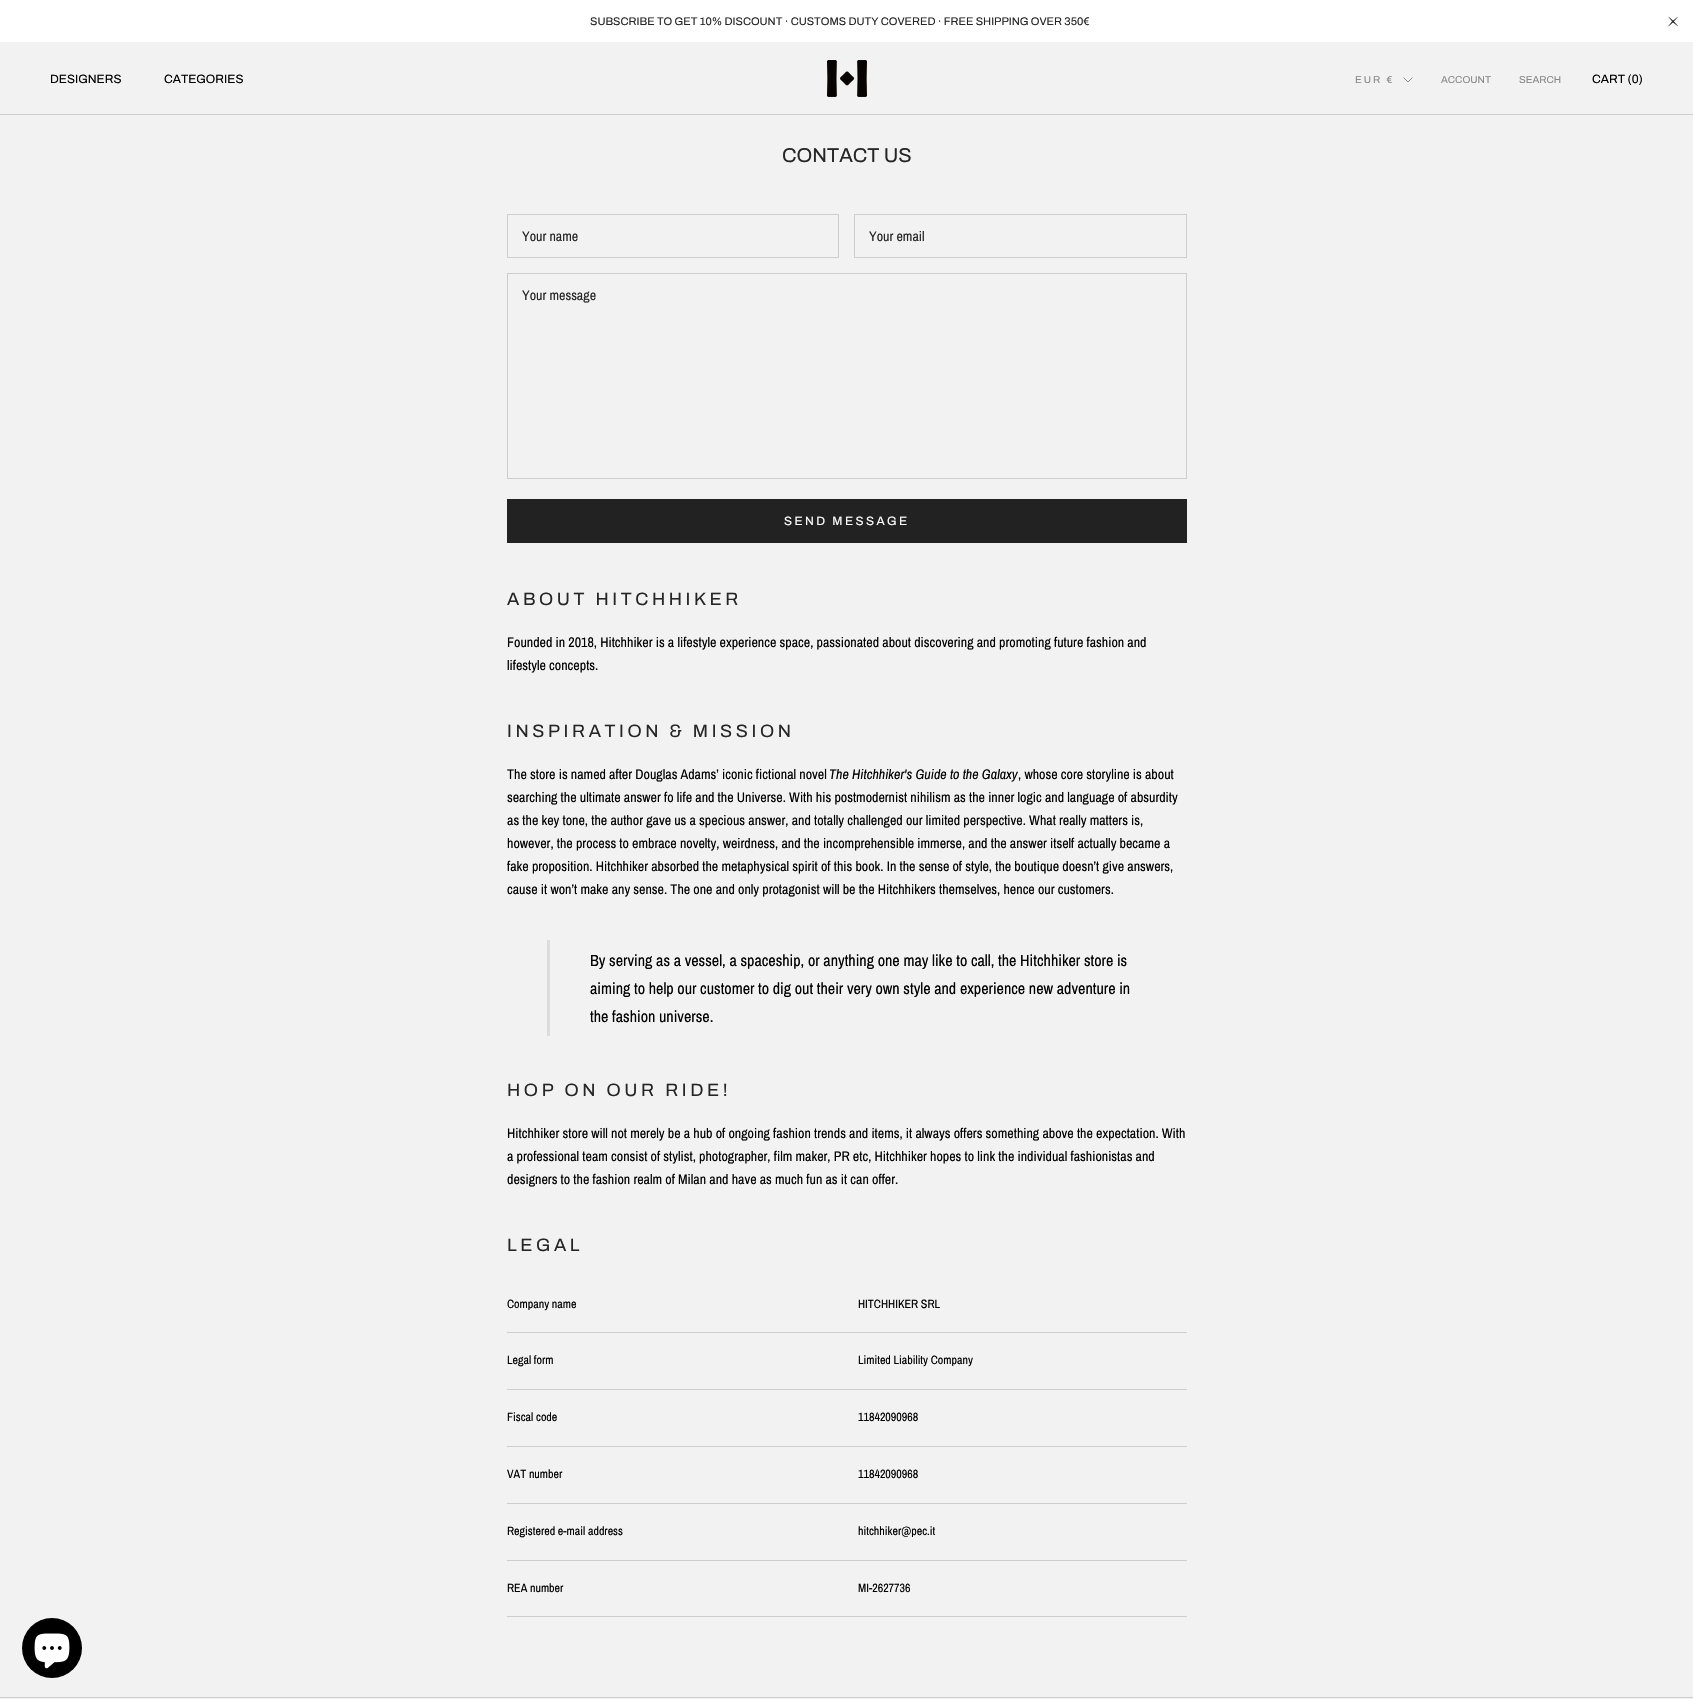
void draw(SkCanvas* canvas) {
  SkPaint paint;
  paint.setAntiAlias(true);
  auto face = [&](const char* family, int weight, float size, bool italic = false) {
    SkFontStyle style(weight, SkFontStyle::kNormal_Width,
      italic ? SkFontStyle::kItalic_Slant : SkFontStyle::kUpright_Slant);
    SkFont result(fontMgr->matchFamilyStyle(family, style), size);
    result.setSubpixel(true);
    return result;
  };
  auto writeSpaced = [&](const char* s, float x, float y, const SkFont& font, const SkPaint& ink, float letter, float word) {
    std::vector<SkGlyphID> glyphs(font.countText(s, strlen(s), SkTextEncoding::kUTF8));
    std::vector<float> xs(glyphs.size());
    font.textToGlyphs(s, strlen(s), SkTextEncoding::kUTF8, glyphs);
    font.getXPos(glyphs, xs, x);
    float extra = 0;
    for (size_t i = 0; i < glyphs.size(); i++) {
      xs[i] += extra;
      extra += letter + word * (glyphs[i] == font.unicharToGlyph(' '));
    }
    canvas->drawTextBlob(SkTextBlob::MakeFromPosHGlyphs(glyphs, xs, y, font), 0, 0, ink);
  };
  auto paste = [&](const char* path, float x, float y, float w, float h) {
    auto image = SkImages::DeferredFromEncodedData(SkData::MakeFromFileName(path));
    canvas->drawImageRect(image, SkRect::MakeXYWH(x, y, w, h), SkSamplingOptions());
  };
  auto shape = [&](const char* data, bool evenOdd = false) {
    SkPath result = *SkParsePath::FromSVGString(data);
    if (evenOdd) result.setFillType(SkPathFillType::kEvenOdd);
    return result;
  };
  canvas->clear(0xfff2f2f2);
  paint.setColor(0xffffffff);
  canvas->drawRect(SkRect::MakeXYWH(0, 0, 1693, 42), paint);
  paste("img/1.png", 1668, 16, 10, 11);
  paint.setColor(0xffcecece);
  canvas->drawRect(SkRect::MakeXYWH(0, 114, 1693, 1), paint);
  paste("img/2.png", 827, 60, 40, 37);
  paint.setStroke(true);
  paint.setStrokeWidth(1);
  paint.setStrokeCap(SkPaint::kSquare_Cap);
  paint.setColor(0xff888888);
  canvas->drawPath(shape("M1412 78L1408 82L1404 78"), paint);
  paint.setStrokeCap(SkPaint::kButt_Cap);
  paint.setColor(0xffcecece);
  canvas->drawRect(SkRect::MakeXYWH(507.5f, 214.5f, 331, 43), paint);
  canvas->drawRect(SkRect::MakeXYWH(854.5f, 214.5f, 332, 43), paint);
  canvas->drawRect(SkRect::MakeXYWH(507.5f, 273.5f, 679, 205), paint);
  paint.setColor(0xff222222);
  canvas->drawRect(SkRect::MakeXYWH(507.5f, 499.5f, 679, 43), paint);
  paint.setStroke(false);
  {
    const struct { float x, y, w, h; SkColor color; } items[] = {
      {508, 500, 678, 42, 0xff222222},
      {547, 940, 3, 96, 0xffdcdcdc},
      {507, 1332, 680, 1, 0xffcecece},
      {507, 1389, 680, 1, 0xffcecece},
      {507, 1446, 680, 1, 0xffcecece},
      {507, 1503, 680, 1, 0xffcecece},
      {507, 1560, 680, 1, 0xffcecece},
      {507, 1616, 680, 1, 0xffcecece},
      {0, 1697, 1693, 1, 0xffcecece},
    };
    for (auto [x, y, w, h, color] : items) {
      paint.setColor(color);
      canvas->drawRect(SkRect::MakeXYWH(x, y, w, h), paint);
    }
  }
  paint.setColor(0xff000000);
  canvas->drawCircle(52, 1648, 30, paint);
  paste("img/3.png", 34, 1633, 36, 36);
  auto f0 = face("Archivo", 400, 11);
  paint.setColor(0xff262626);
  canvas->drawString("SUBSCRIBE TO GET 10% DISCOUNT · CUSTOMS DUTY COVERED · FREE SHIPPING OVER 350€", 590, 25, f0, paint);
  auto f1 = face("Archivo", 400, 12);
  paint.setColor(0xff000000);
  canvas->drawString("DESIGNERS", 50, 83, f1, paint);
  canvas->drawString("CATEGORIES", 164, 83, f1, paint);
  auto f2 = face("Archivo", 400, 10);
  paint.setColor(0xff888888);
  writeSpaced("EUR €", 1355, 83, f2, paint, 2, 0);
  canvas->drawString("ACCOUNT", 1441, 83, f2, paint);
  canvas->drawString("SEARCH", 1519, 83, f2, paint);
  paint.setColor(0xff000000);
  canvas->drawString("CART (0)", 1592, 83, f1, paint);
  auto f3 = face("Archivo", 400, 20);
  paint.setColor(0xff262626);
  canvas->drawString("CONTACT US", 782, 162, f3, paint);
  auto f4 = face("Archivo Narrow", 400, 14);
  {
    const struct { const char* s; float x, y; } items[] = {
      {"Your name", 522, 241},
      {"Your email", 869, 241},
      {"Your message", 522, 300},
    };
    for (auto [s, x, y] : items) {
      canvas->drawString(s, x, y, f4, paint);
    }
  }
  paint.setColor(0xfffcfcfc);
  writeSpaced("SEND MESSAGE", 784, 525, f1, paint, 2.4f, 0);
  auto f5 = face("Archivo", 400, 18);
  paint.setColor(0xff262626);
  writeSpaced("ABOUT HITCHHIKER", 507, 605, f5, paint, 3.6f, 0);
  paint.setColor(0xff000000);
  canvas->drawString("Founded in 2018, Hitchhiker is a lifestyle experience space, passionated about discovering and promoting future fashion and", 507, 647, f4, paint);
  canvas->drawString("lifestyle concepts.", 507, 670, f4, paint);
  paint.setColor(0xff262626);
  writeSpaced("INSPIRATION & MISSION", 507, 737, f5, paint, 3.6f, 0);
  paint.setColor(0xff000000);
  canvas->drawString("The store is named after Douglas Adams’ iconic fictional novel", 507, 779, f4, paint);
  auto f6 = face("Archivo Narrow", 400, 14, true);
  canvas->drawString("The Hitchhiker's Guide to the Galaxy", 829, 779, f6, paint);
  {
    const struct { const char* s; float x, y; } items[] = {
      {", whose core storyline is about", 1018, 779},
      {"searching the ultimate answer fo life and the Universe. With his postmodernist nihilism as the inner logic and language of absurdity", 507, 802},
      {"as the key tone, the author gave us a specious answer, and totally challenged our limited perspective. What really matters is,", 507, 825},
      {"however, the process to embrace novelty, weirdness, and the incomprehensible immerse, and the answer itself actually became a", 507, 848},
      {"fake proposition. Hitchhiker absorbed the metaphysical spirit of this book. In the sense of style, the boutique doesn’t give answers,", 507, 871},
      {"cause it won’t make any sense. The one and only protagonist will be the Hitchhikers themselves, hence our customers.", 507, 894},
    };
    for (auto [s, x, y] : items) {
      canvas->drawString(s, x, y, f4, paint);
    }
  }
  auto f7 = face("Archivo Narrow", 400, 16.1f);
  {
    const struct { const char* s; float x, y; } items[] = {
      {"By serving as a vessel, a spaceship, or anything one may like to call, the Hitchhiker store is", 590, 966},
      {"aiming to help our customer to dig out their very own style and experience new adventure in", 590, 994},
      {"the fashion universe.", 590, 1022},
    };
    for (auto [s, x, y] : items) {
      canvas->drawString(s, x, y, f7, paint);
    }
  }
  paint.setColor(0xff262626);
  writeSpaced("HOP ON OUR RIDE!", 507, 1096, f5, paint, 3.6f, 0);
  paint.setColor(0xff000000);
  {
    const struct { const char* s; float x, y; } items[] = {
      {"Hitchhiker store will not merely be a hub of ongoing fashion trends and items, it always offers something above the expectation. With", 507, 1138},
      {"a professional team consist of stylist, photographer, film maker, PR etc, Hitchhiker hopes to link the individual fashionistas and", 507, 1161},
      {"designers to the fashion realm of Milan and have as much fun as it can offer.", 507, 1184},
    };
    for (auto [s, x, y] : items) {
      canvas->drawString(s, x, y, f4, paint);
    }
  }
  paint.setColor(0xff262626);
  writeSpaced("LEGAL", 507, 1251, f5, paint, 3.6f, 0);
  auto f8 = face("Archivo Narrow", 400, 12);
  paint.setColor(0xff000000);
  {
    const struct { const char* s; float x, y; } items[] = {
      {"Company name", 507, 1308},
      {"HITCHHIKER SRL", 858, 1308},
      {"Legal form", 507, 1364},
      {"Limited Liability Company", 858, 1364},
      {"Fiscal code", 507, 1421},
      {"11842090968", 858, 1421},
      {"VAT number", 507, 1478},
      {"11842090968", 858, 1478},
      {"Registered e-mail address", 507, 1535},
      {"hitchhiker@pec.it", 858, 1535},
      {"REA number", 507, 1592},
      {"MI-2627736", 858, 1592},
    };
    for (auto [s, x, y] : items) {
      canvas->drawString(s, x, y, f8, paint);
    }
  }
}
